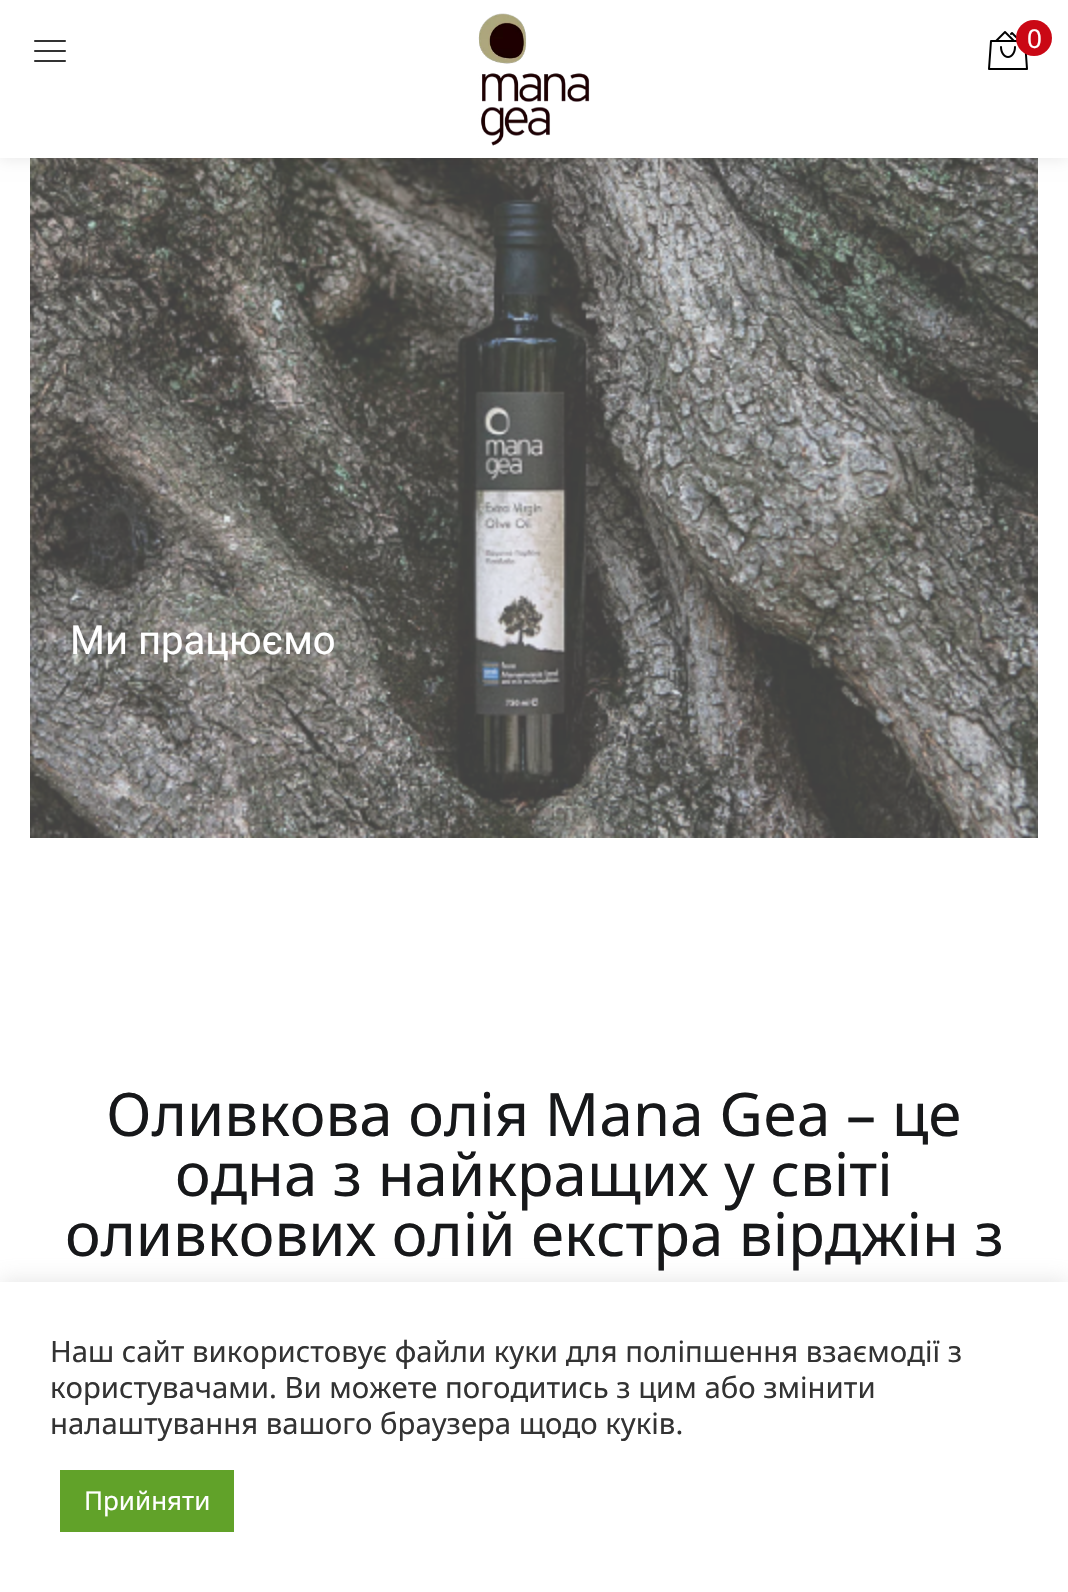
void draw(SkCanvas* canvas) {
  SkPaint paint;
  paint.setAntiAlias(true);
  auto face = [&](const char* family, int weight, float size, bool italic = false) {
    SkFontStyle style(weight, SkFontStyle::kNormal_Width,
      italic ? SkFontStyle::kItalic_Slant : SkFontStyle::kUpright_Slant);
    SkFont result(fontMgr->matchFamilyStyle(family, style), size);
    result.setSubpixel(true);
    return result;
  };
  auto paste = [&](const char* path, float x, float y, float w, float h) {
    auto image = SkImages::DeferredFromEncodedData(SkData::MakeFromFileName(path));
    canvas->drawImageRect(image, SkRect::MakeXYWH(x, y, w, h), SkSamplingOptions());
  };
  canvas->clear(0xffffffff);
  paste("img/4.png", 30, 158, 1008, 680);
  paint.setColor(0x1a000000);
  paint.setMaskFilter(SkMaskFilter::MakeBlur(kNormal_SkBlurStyle, 8));
  canvas->drawRect(SkRect::MakeXYWH(0, 0, 1068, 158), paint);
  paint.setMaskFilter(nullptr);
  paint.setColor(0xffffffff);
  canvas->drawRect(SkRect::MakeXYWH(0, 0, 1068, 158), paint);
  paste("img/1.png", 34, 40, 32, 22);
  paste("img/2.png", 478, 13, 112, 133);
  paste("img/3.png", 988, 31, 40, 39);
  paint.setColor(0xffca0815);
  canvas->drawCircle(1034, 38, 18, paint);
  paint.setColor(0x4dacabab);
  paint.setMaskFilter(SkMaskFilter::MakeBlur(kNormal_SkBlurStyle, 10));
  canvas->drawRect(SkRect::MakeXYWH(0, 1280, 1068, 310), paint);
  paint.setMaskFilter(nullptr);
  paint.setColor(0xffffffff);
  canvas->drawRect(SkRect::MakeXYWH(0, 1282, 1068, 310), paint);
  paint.setColor(0xff61a229);
  canvas->drawRect(SkRect::MakeXYWH(60, 1470, 174, 62), paint);
  auto f0 = face("Noto Sans", 400, 26);
  paint.setColor(0xffffffff);
  canvas->drawString("0", 1027, 48, f0, paint);
  auto f1 = face("Roboto", 400, 40);
  canvas->drawString("Ми працюємо", 70, 654, f1, paint);
  auto f2 = face("Noto Sans", 400, 60);
  paint.setColor(0xff17181a);
  {
    const struct { const char* s; float x, y; } items[] = {
      {"Оливкова олія Mana Gea – це", 106, 1136},
      {"одна з найкращих у світі", 175, 1196},
      {"оливкових олій екстра вірджін з", 65, 1256},
    };
    for (auto [s, x, y] : items) {
      canvas->drawString(s, x, y, f2, paint);
    }
  }
  auto f3 = face("Noto Sans", 400, 29.3f);
  paint.setColor(0xff333333);
  {
    const struct { const char* s; float x, y; } items[] = {
      {"Наш сайт використовує файли куки для поліпшення взаємодії з", 50, 1362},
      {"користувачами. Ви можете погодитись з цим або змінити", 50, 1398},
      {"налаштування вашого браузера щодо куків.", 50, 1434},
    };
    for (auto [s, x, y] : items) {
      canvas->drawString(s, x, y, f3, paint);
    }
  }
  paint.setColor(0xffffffff);
  canvas->drawString("Прийняти", 84, 1510, f0, paint);
}
